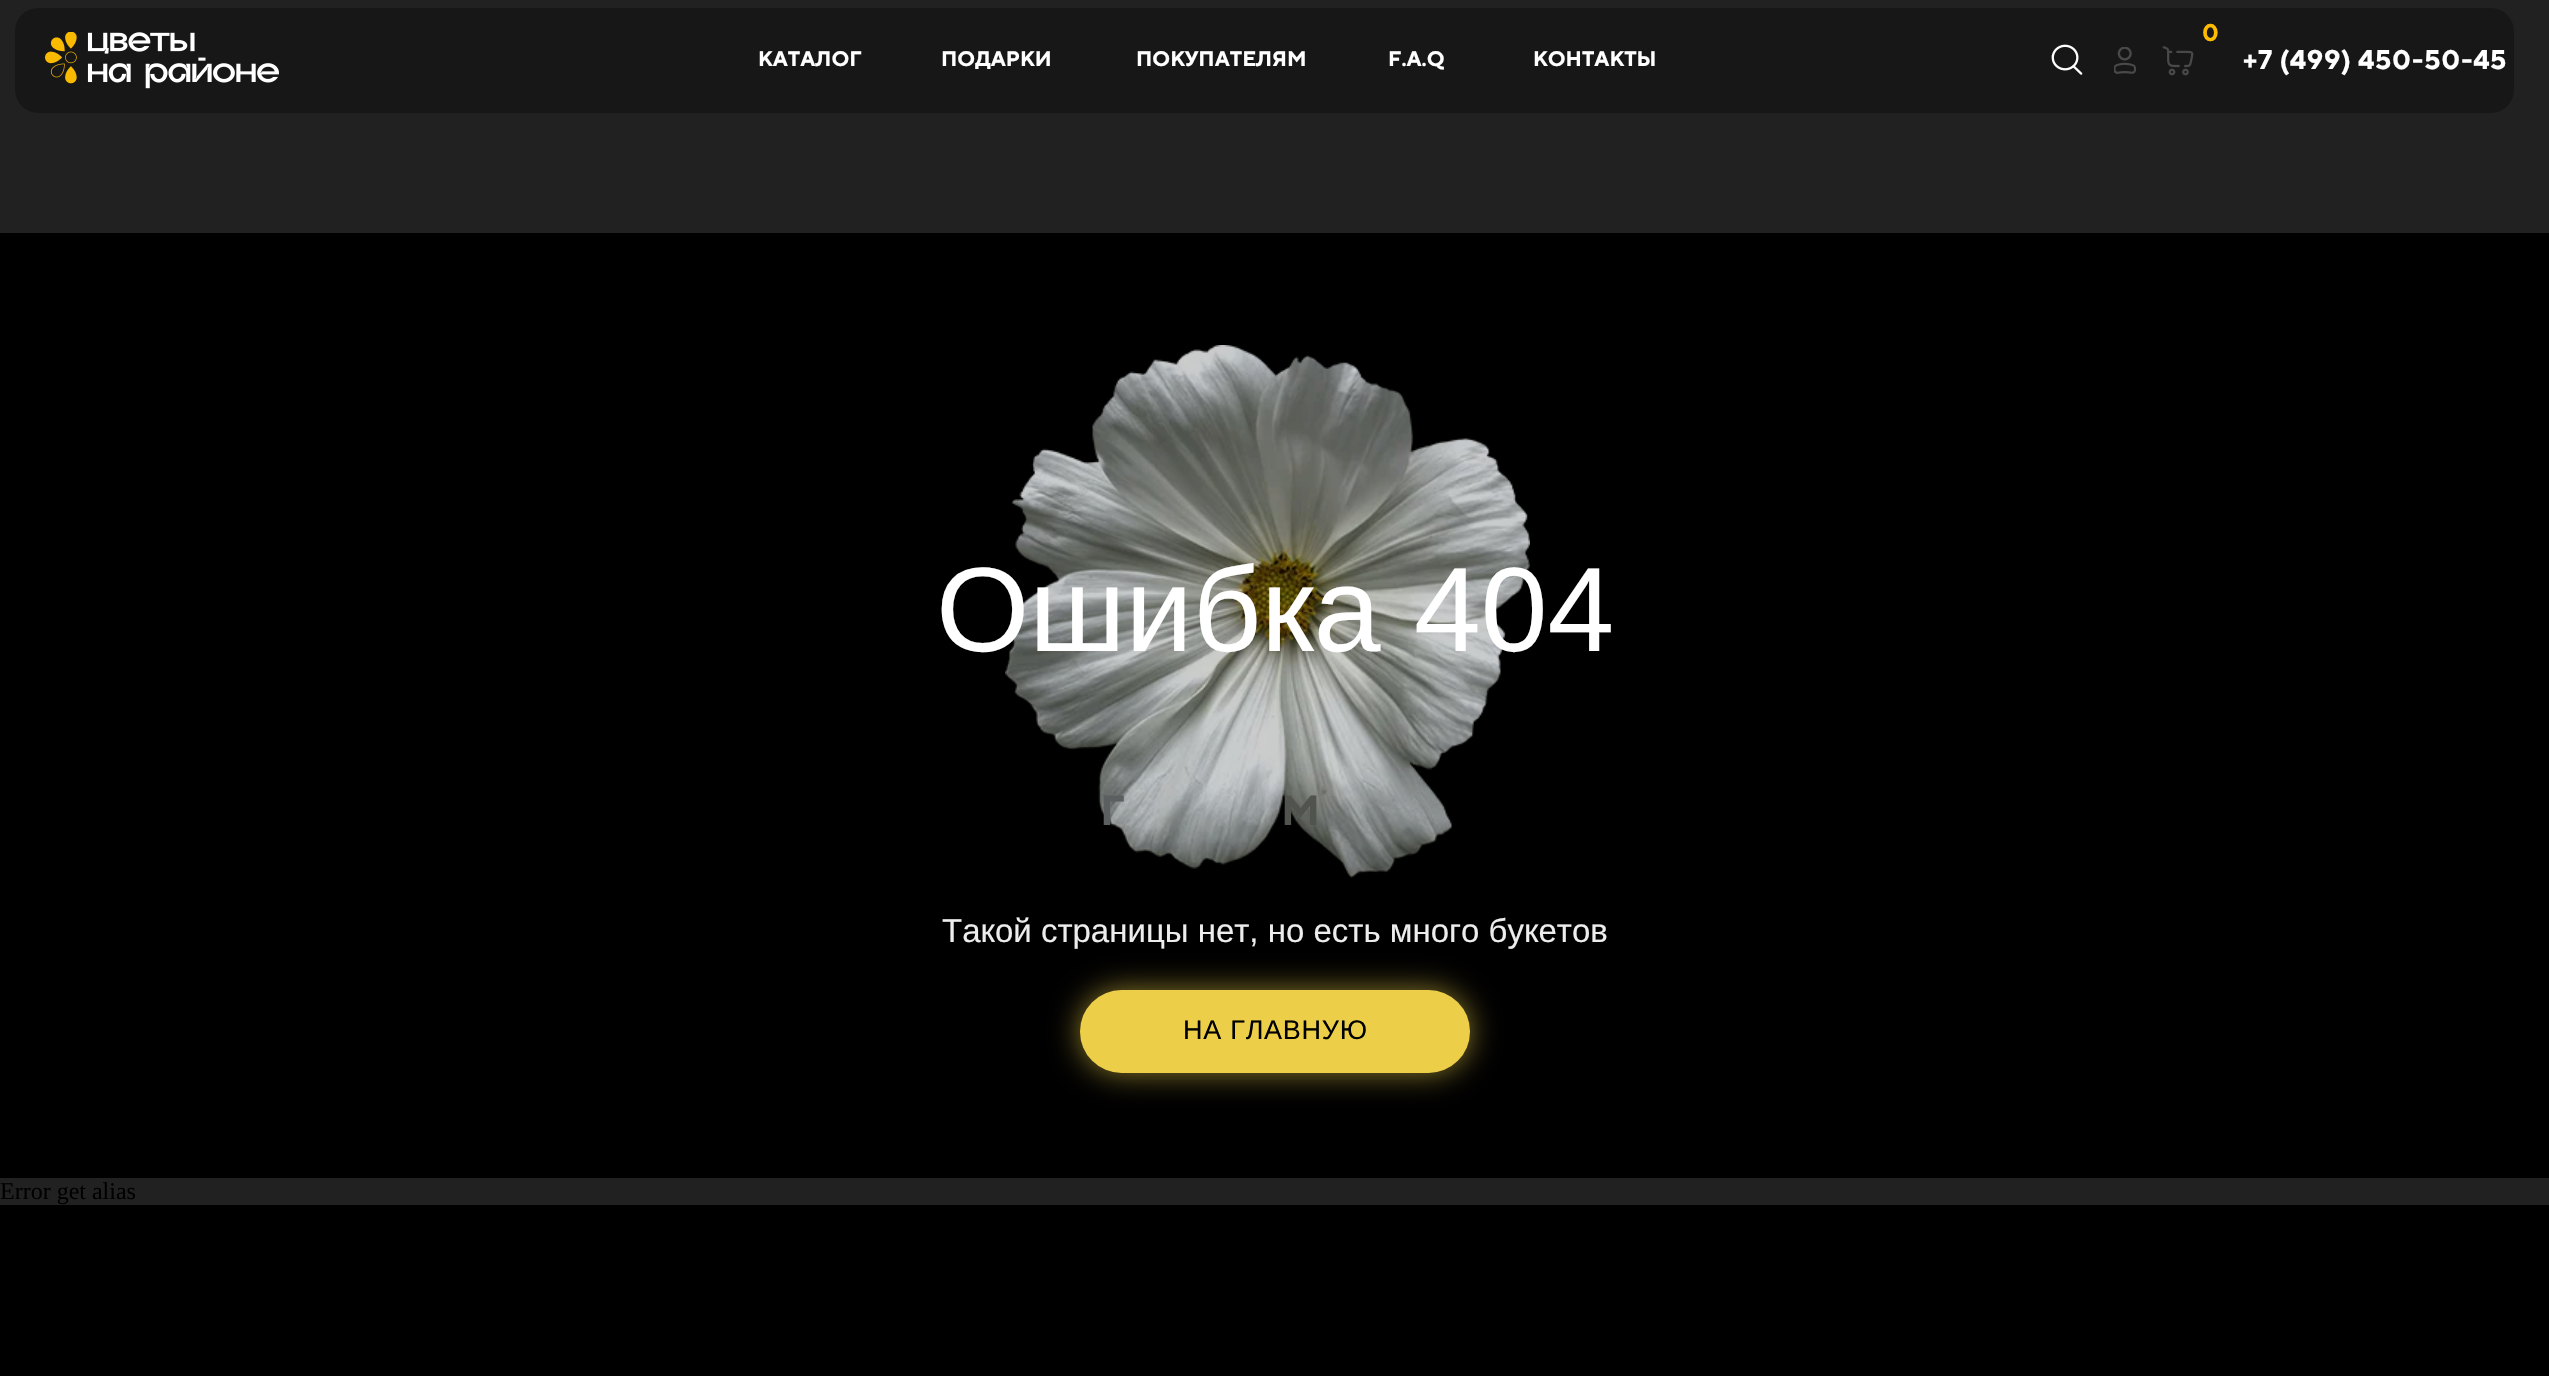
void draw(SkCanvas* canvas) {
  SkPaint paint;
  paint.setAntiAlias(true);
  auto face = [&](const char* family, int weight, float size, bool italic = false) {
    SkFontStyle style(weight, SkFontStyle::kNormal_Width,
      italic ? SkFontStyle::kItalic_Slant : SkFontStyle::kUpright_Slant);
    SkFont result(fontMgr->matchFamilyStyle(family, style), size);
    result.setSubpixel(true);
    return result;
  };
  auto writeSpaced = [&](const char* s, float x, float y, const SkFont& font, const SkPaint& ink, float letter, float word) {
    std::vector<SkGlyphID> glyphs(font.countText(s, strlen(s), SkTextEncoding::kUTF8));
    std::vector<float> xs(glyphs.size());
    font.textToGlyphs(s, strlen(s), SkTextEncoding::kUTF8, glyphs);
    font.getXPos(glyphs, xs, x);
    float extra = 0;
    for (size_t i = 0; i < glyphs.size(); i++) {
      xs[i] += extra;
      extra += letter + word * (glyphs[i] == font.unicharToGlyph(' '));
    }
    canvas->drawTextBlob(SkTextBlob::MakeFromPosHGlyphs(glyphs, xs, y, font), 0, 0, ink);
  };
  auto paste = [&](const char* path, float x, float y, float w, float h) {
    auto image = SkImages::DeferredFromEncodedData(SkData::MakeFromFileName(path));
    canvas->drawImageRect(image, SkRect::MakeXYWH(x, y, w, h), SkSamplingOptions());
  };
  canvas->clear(0xff000000);
  paint.setColor(0xff212121);
  canvas->drawRect(SkRect::MakeXYWH(0, 0, 2549, 1205), paint);
  paint.setColor(0xff171717);
  canvas->drawRoundRect(SkRect::MakeXYWH(15, 8, 2499, 105), 23, 23, paint);
  paste("img/1.png", 45, 32, 234, 57);
  paste("img/2.png", 2051, 44, 32, 31);
  paste("img/3.png", 2114, 47, 22, 27);
  paste("img/4.png", 2162, 46, 32, 30);
  paint.setColor(0xff000000);
  canvas->drawRect(SkRect::MakeXYWH(0, 233, 2549, 945), paint);
  paste("img/5.png", 1005, 345, 525, 533);
  paint.setColor(0x99ecce48);
  paint.setMaskFilter(SkMaskFilter::MakeBlur(kNormal_SkBlurStyle, 15));
  canvas->drawRoundRect(SkRect::MakeXYWH(1080, 990, 390, 83), 41.5f, 41.5f, paint);
  paint.setMaskFilter(nullptr);
  paint.setColor(0xffecce48);
  canvas->drawRoundRect(SkRect::MakeXYWH(1080, 990, 390, 83), 41.5f, 41.5f, paint);
  auto f0 = face("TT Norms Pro", 700, 21);
  paint.setColor(0xffffffff);
  {
    const struct { const char* s; float x, y; } items[] = {
      {"КАТАЛОГ", 758, 66},
      {"ПОДАРКИ", 941, 66},
      {"ПОКУПАТЕЛЯМ", 1136, 66},
      {"F.A.Q", 1388, 66},
      {"КОНТАКТЫ", 1533, 66},
    };
    for (auto [s, x, y] : items) {
      canvas->drawString(s, x, y, f0, paint);
    }
  }
  auto f1 = face("TT Norms Pro", 700, 24);
  paint.setColor(0xffffbb00);
  canvas->drawString("0", 2202, 41, f1, paint);
  auto f2 = face("TT Norms Pro", 700, 27);
  paint.setColor(0xffffffff);
  writeSpaced("+7 (499) 450-50-45", 2243, 69, f2, paint, 0.75f, 0);
  auto f3 = face("TT Norms Pro", 700, 42);
  paint.setColor(0xff5c5f5f);
  canvas->drawString("Г", 1100, 825, f3, paint);
  paint.setColor(0xff50534e);
  canvas->drawString("М", 1281, 825, f3, paint);
  auto f4 = face("Liberation Sans", 400, 120);
  paint.setColor(0xffffffff);
  canvas->drawString("Ошибка 404", 936, 651, f4, paint);
  auto f5 = face("Liberation Sans", 400, 33);
  paint.setColor(0xffededed);
  canvas->drawString("Такой страницы нет, но есть много букетов", 942, 942, f5, paint);
  auto f6 = face("Liberation Sans", 400, 27);
  paint.setColor(0xff000000);
  writeSpaced("НА ГЛАВНУЮ", 1183, 1039, f6, paint, 0.75f, 0);
  auto f7 = face("Liberation Serif", 400, 24);
  canvas->drawString("Error get alias", 0, 1199, f7, paint);
}
